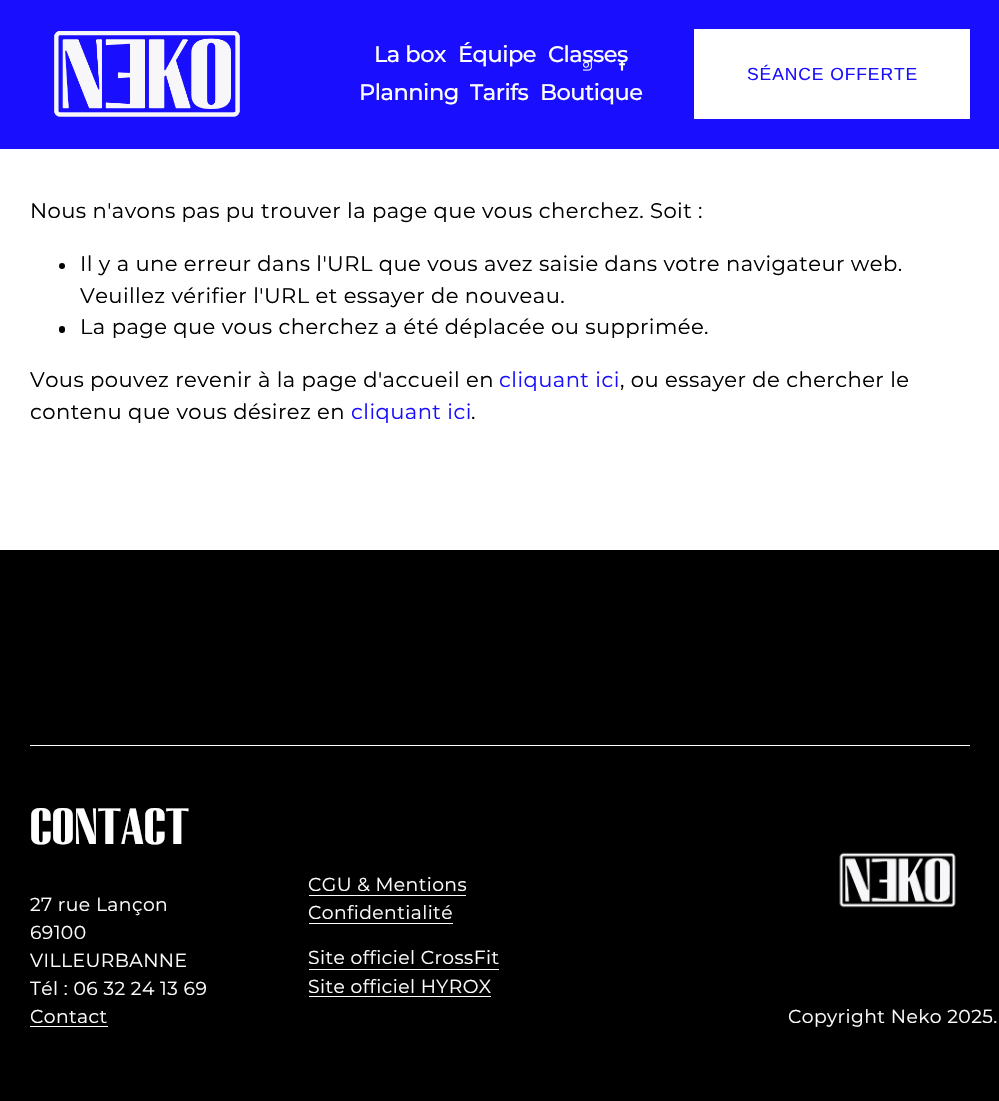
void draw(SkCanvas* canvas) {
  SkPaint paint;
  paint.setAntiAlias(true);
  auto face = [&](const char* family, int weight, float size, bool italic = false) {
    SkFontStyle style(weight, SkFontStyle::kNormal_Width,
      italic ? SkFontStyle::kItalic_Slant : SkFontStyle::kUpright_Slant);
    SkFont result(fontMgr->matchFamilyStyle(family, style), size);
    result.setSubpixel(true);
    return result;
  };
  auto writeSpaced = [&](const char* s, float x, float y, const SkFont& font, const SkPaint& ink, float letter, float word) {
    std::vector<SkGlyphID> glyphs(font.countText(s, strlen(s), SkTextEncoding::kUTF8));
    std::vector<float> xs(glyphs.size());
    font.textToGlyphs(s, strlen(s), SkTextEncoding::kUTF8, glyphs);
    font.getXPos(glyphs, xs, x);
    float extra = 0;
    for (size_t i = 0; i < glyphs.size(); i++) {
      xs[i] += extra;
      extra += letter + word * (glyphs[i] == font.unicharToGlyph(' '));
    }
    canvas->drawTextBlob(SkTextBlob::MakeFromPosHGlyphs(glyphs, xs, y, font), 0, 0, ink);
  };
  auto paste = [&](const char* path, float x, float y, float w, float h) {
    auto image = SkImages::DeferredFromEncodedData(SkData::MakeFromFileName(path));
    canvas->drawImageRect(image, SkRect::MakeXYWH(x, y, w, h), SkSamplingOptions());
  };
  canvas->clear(0xffffffff);
  paint.setColor(0xff190ffe);
  canvas->drawRect(SkRect::MakeXYWH(0, 0, 999, 149), paint);
  paste("img/1.png", 54, 31, 186, 86);
  paint.setColor(0xffffffff);
  canvas->drawRect(SkRect::MakeXYWH(694, 29, 276, 90), paint);
  paint.setColor(0xff000000);
  canvas->drawCircle(62, 266, 3, paint);
  canvas->drawRoundRect(SkRect::MakeXYWH(59, 326, 6, 7), 3, 3, paint);
  {
    const struct { float x, y, w, h; SkColor color; } items[] = {
      {0, 550, 999, 551, 0xff000000},
      {30, 745, 940, 1, 0xffffffff},
      {30, 1026, 78, 1, 0xffffffff},
      {309, 895, 157, 1, 0xffffffff},
      {309, 923, 144, 1, 0xffffffff},
      {309, 969, 190, 1, 0xffffffff},
      {309, 996, 182, 1, 0xffffffff},
    };
    for (auto [x, y, w, h, color] : items) {
      paint.setColor(color);
      canvas->drawRect(SkRect::MakeXYWH(x, y, w, h), paint);
    }
  }
  paste("img/4.png", 839, 852, 117, 56);
  auto f0 = face("Montserrat", 500, 22.5f);
  {
    const struct { const char* s; float x, y; } items[] = {
      {"La box", 374, 62},
      {"Équipe", 458, 62},
      {"Classes", 548, 62},
      {"Planning", 359, 100},
      {"Tarifs", 470, 100},
      {"Boutique", 540, 100},
    };
    for (auto [s, x, y] : items) {
      writeSpaced(s, x, y, f0, paint, -0.5f, 0);
    }
  }
  paste("img/2.png", 583, 61, 9, 10);
  paste("img/3.png", 619, 62, 7, 9);
  auto f1 = face("Liberation Sans", 400, 17.5f);
  paint.setColor(0xff190ffe);
  writeSpaced("SÉANCE OFFERTE", 747, 80, f1, paint, 0.9f, 0);
  auto f2 = face("Montserrat", 400, 21.1f);
  paint.setColor(0xff000000);
  {
    const struct { const char* s; float x, y; } items[] = {
      {"Nous n'avons pas pu trouver la page que vous cherchez. Soit :", 30, 218},
      {"Il y a une erreur dans l'URL que vous avez saisie dans votre navigateur web.", 80, 271},
      {"Veuillez vérifier l'URL et essayer de nouveau.", 80, 303},
      {"La page que vous cherchez a été déplacée ou supprimée.", 80, 334},
      {"Vous pouvez revenir à la page d'accueil en", 30, 387},
    };
    for (auto [s, x, y] : items) {
      writeSpaced(s, x, y, f2, paint, 0.42f, 0);
    }
  }
  paint.setColor(0xff190ffe);
  writeSpaced("cliquant ici", 499, 387, f2, paint, 0.42f, 0);
  paint.setColor(0xff000000);
  writeSpaced(", ou essayer de chercher le", 620, 387, f2, paint, 0.42f, 0);
  writeSpaced("contenu que vous désirez en", 30, 419, f2, paint, 0.42f, 0);
  paint.setColor(0xff190ffe);
  writeSpaced("cliquant ici", 351, 419, f2, paint, 0.42f, 0);
  paint.setColor(0xff000000);
  writeSpaced(".", 471, 419, f2, paint, 0.42f, 0);
  auto f3 = face("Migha", 900, 42.5f);
  paint.setColor(0xffffffff);
  writeSpaced("CONTACT", 30, 844, f3, paint, 0.5f, 0);
  auto f4 = face("Montserrat", 400, 18.75f);
  {
    const struct { const char* s; float x, y; } items[] = {
      {"27 rue Lançon", 30, 911},
      {"69100", 30, 939},
      {"VILLEURBANNE", 30, 967},
      {"Tél : 06 32 24 13 69", 30, 995},
      {"Contact", 30, 1023},
      {"CGU & Mentions", 308, 891},
      {"Confidentialité", 308, 919},
      {"Site officiel CrossFit", 308, 964},
      {"Site officiel HYROX", 308, 993},
      {"Copyright Neko 2025.", 788, 1023},
    };
    for (auto [s, x, y] : items) {
      writeSpaced(s, x, y, f4, paint, 0.42f, 0);
    }
  }
}
